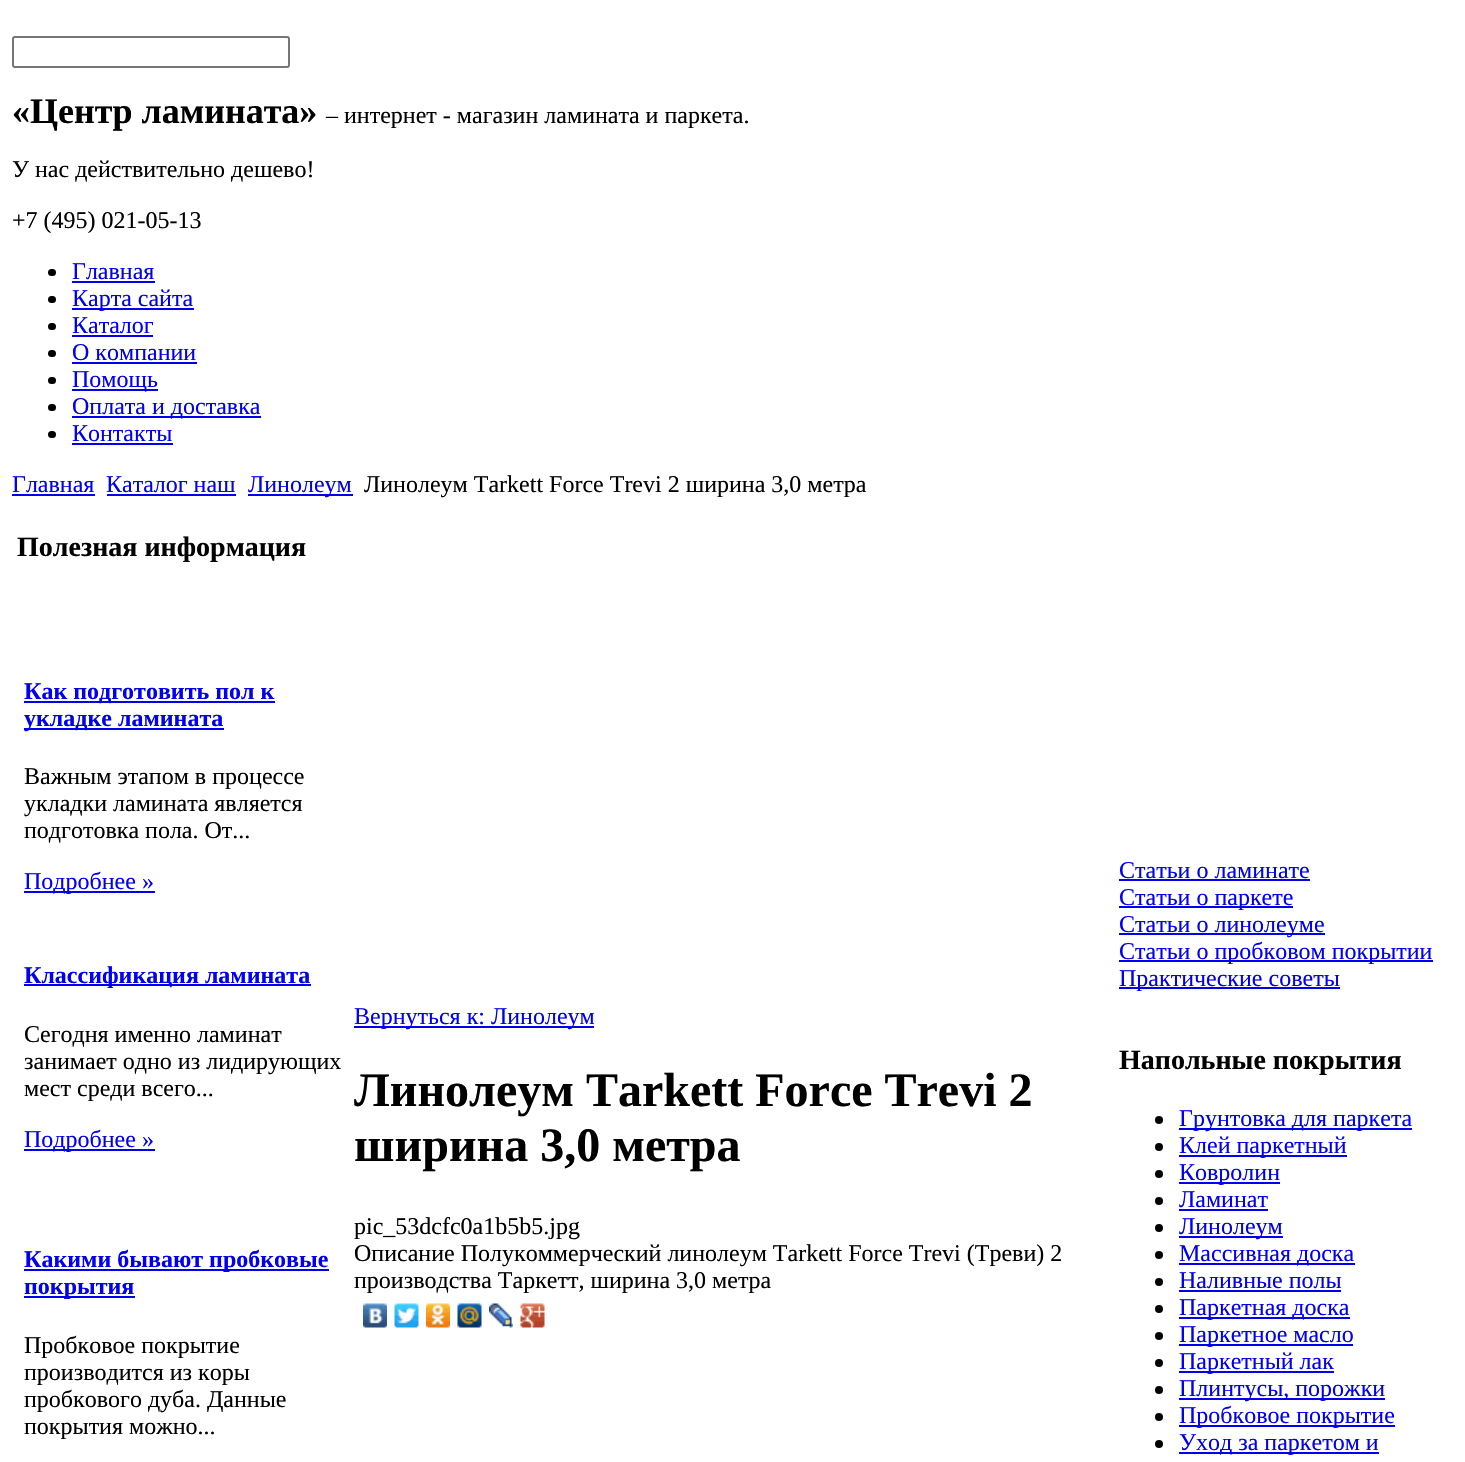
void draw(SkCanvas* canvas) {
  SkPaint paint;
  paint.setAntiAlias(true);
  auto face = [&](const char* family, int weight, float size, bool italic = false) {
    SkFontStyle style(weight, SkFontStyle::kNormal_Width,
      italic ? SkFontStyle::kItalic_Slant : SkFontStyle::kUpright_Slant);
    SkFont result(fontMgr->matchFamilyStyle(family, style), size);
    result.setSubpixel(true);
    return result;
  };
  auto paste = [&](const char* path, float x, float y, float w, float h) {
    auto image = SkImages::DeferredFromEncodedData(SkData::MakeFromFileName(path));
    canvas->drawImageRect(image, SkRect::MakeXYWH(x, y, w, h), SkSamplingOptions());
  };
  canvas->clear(0xffffffff);
  paint.setStroke(true);
  paint.setStrokeWidth(2);
  paint.setColor(0xff767676);
  canvas->drawRoundRect(SkRect::MakeXYWH(13, 37, 276, 30), 2, 2, paint);
  paint.setStroke(false);
  paint.setColor(0xff000000);
  canvas->drawRoundRect(SkRect::MakeXYWH(48, 269, 8, 7), 3.5f, 3.5f, paint);
  paint.setColor(0xff0000ee);
  canvas->drawRect(SkRect::MakeXYWH(72, 281, 83, 2), paint);
  paint.setColor(0xff000000);
  canvas->drawRoundRect(SkRect::MakeXYWH(48, 296, 8, 7), 3.5f, 3.5f, paint);
  paint.setColor(0xff0000ee);
  canvas->drawRect(SkRect::MakeXYWH(72, 308, 122, 2), paint);
  paint.setColor(0xff000000);
  canvas->drawRoundRect(SkRect::MakeXYWH(48, 323, 8, 7), 3.5f, 3.5f, paint);
  paint.setColor(0xff0000ee);
  canvas->drawRect(SkRect::MakeXYWH(72, 335, 81, 2), paint);
  paint.setColor(0xff000000);
  canvas->drawRoundRect(SkRect::MakeXYWH(48, 350, 8, 7), 3.5f, 3.5f, paint);
  paint.setColor(0xff0000ee);
  canvas->drawRect(SkRect::MakeXYWH(72, 362, 125, 2), paint);
  paint.setColor(0xff000000);
  canvas->drawRoundRect(SkRect::MakeXYWH(48, 377, 8, 7), 3.5f, 3.5f, paint);
  paint.setColor(0xff0000ee);
  canvas->drawRect(SkRect::MakeXYWH(72, 389, 86, 2), paint);
  paint.setColor(0xff000000);
  canvas->drawRoundRect(SkRect::MakeXYWH(48, 404, 8, 7), 3.5f, 3.5f, paint);
  paint.setColor(0xff0000ee);
  canvas->drawRect(SkRect::MakeXYWH(72, 416, 189, 2), paint);
  paint.setColor(0xff000000);
  canvas->drawRoundRect(SkRect::MakeXYWH(48, 431, 8, 7), 3.5f, 3.5f, paint);
  {
    const struct { float x, y, w, h; SkColor color; } items[] = {
      {72, 443, 101, 2, 0xff0000ee},
      {12, 494, 83, 2, 0xff0000ee},
      {107, 494, 129, 2, 0xff0000ee},
      {248, 494, 105, 2, 0xff0000ee},
      {24, 701, 251, 2, 0xff0000ee},
      {24, 728, 200, 2, 0xff0000ee},
      {24, 891, 131, 2, 0xff0000ee},
      {24, 984, 287, 2, 0xff0000ee},
      {24, 1149, 131, 2, 0xff0000ee},
      {24, 1269, 305, 2, 0xff0000ee},
      {24, 1296, 111, 2, 0xff0000ee},
      {354, 1026, 240, 2, 0xff0000ee},
    };
    for (auto [x, y, w, h, color] : items) {
      paint.setColor(color);
      canvas->drawRect(SkRect::MakeXYWH(x, y, w, h), paint);
    }
  }
  paste("img/1.png", 363, 1303, 24, 25);
  paste("img/2.png", 394, 1303, 25, 25);
  paste("img/3.png", 426, 1303, 24, 25);
  paste("img/4.png", 457, 1303, 25, 25);
  paste("img/5.png", 489, 1303, 24, 25);
  paste("img/6.png", 520, 1303, 25, 25);
  {
    const struct { float x, y, w, h; SkColor color; } items[] = {
      {1119, 879, 191, 2, 0xff0000ee},
      {1119, 906, 174, 2, 0xff0000ee},
      {1119, 933, 206, 2, 0xff0000ee},
      {1119, 960, 314, 2, 0xff0000ee},
      {1119, 987, 221, 2, 0xff0000ee},
    };
    for (auto [x, y, w, h, color] : items) {
      paint.setColor(color);
      canvas->drawRect(SkRect::MakeXYWH(x, y, w, h), paint);
    }
  }
  paint.setColor(0xff000000);
  canvas->drawCircle(1159, 1120, 4, paint);
  paint.setColor(0xff0000ee);
  canvas->drawRect(SkRect::MakeXYWH(1179, 1128, 233, 2), paint);
  paint.setColor(0xff000000);
  canvas->drawCircle(1159, 1147, 4, paint);
  paint.setColor(0xff0000ee);
  canvas->drawRect(SkRect::MakeXYWH(1179, 1155, 168, 2), paint);
  paint.setColor(0xff000000);
  canvas->drawCircle(1159, 1174, 4, paint);
  paint.setColor(0xff0000ee);
  canvas->drawRect(SkRect::MakeXYWH(1179, 1182, 101, 2), paint);
  paint.setColor(0xff000000);
  canvas->drawCircle(1159, 1201, 4, paint);
  paint.setColor(0xff0000ee);
  canvas->drawRect(SkRect::MakeXYWH(1179, 1209, 89, 2), paint);
  paint.setColor(0xff000000);
  canvas->drawCircle(1159, 1228, 4, paint);
  paint.setColor(0xff0000ee);
  canvas->drawRect(SkRect::MakeXYWH(1179, 1236, 104, 2), paint);
  paint.setColor(0xff000000);
  canvas->drawCircle(1159, 1255, 4, paint);
  paint.setColor(0xff0000ee);
  canvas->drawRect(SkRect::MakeXYWH(1179, 1263, 176, 2), paint);
  paint.setColor(0xff000000);
  canvas->drawCircle(1159, 1282, 4, paint);
  paint.setColor(0xff0000ee);
  canvas->drawRect(SkRect::MakeXYWH(1179, 1290, 162, 2), paint);
  paint.setColor(0xff000000);
  canvas->drawCircle(1159, 1309, 4, paint);
  paint.setColor(0xff0000ee);
  canvas->drawRect(SkRect::MakeXYWH(1179, 1317, 171, 2), paint);
  paint.setColor(0xff000000);
  canvas->drawCircle(1159, 1336, 4, paint);
  paint.setColor(0xff0000ee);
  canvas->drawRect(SkRect::MakeXYWH(1179, 1344, 174, 2), paint);
  paint.setColor(0xff000000);
  canvas->drawCircle(1159, 1363, 4, paint);
  paint.setColor(0xff0000ee);
  canvas->drawRect(SkRect::MakeXYWH(1179, 1371, 155, 2), paint);
  paint.setColor(0xff000000);
  canvas->drawCircle(1159, 1390, 4, paint);
  paint.setColor(0xff0000ee);
  canvas->drawRect(SkRect::MakeXYWH(1179, 1398, 206, 2), paint);
  paint.setColor(0xff000000);
  canvas->drawCircle(1159, 1417, 4, paint);
  paint.setColor(0xff0000ee);
  canvas->drawRect(SkRect::MakeXYWH(1179, 1425, 216, 2), paint);
  paint.setColor(0xff000000);
  canvas->drawCircle(1159, 1444, 4, paint);
  paint.setColor(0xff0000ee);
  canvas->drawRect(SkRect::MakeXYWH(1179, 1452, 200, 2), paint);
  auto f0 = face("Liberation Serif", 700, 36);
  paint.setColor(0xff000000);
  canvas->drawString("«Центр ламината»", 12, 123, f0, paint);
  auto f1 = face("Liberation Serif", 400, 24);
  {
    const struct { const char* s; float x, y; } items[] = {
      {"– интернет - магазин ламината и паркета.", 326, 123},
      {"У нас действительно дешево!", 12, 177},
      {"+7 (495) 021-05-13", 12, 228},
    };
    for (auto [s, x, y] : items) {
      canvas->drawString(s, x, y, f1, paint);
    }
  }
  paint.setColor(0xff0000ee);
  {
    const struct { const char* s; float x, y; } items[] = {
      {"Главная", 72, 279},
      {"Карта сайта", 72, 306},
      {"Каталог", 72, 333},
      {"О компании", 72, 360},
      {"Помощь", 72, 387},
      {"Оплата и доставка", 72, 414},
      {"Контакты", 72, 441},
      {"Главная", 12, 492},
      {"Каталог наш", 106, 492},
      {"Линолеум", 248, 492},
    };
    for (auto [s, x, y] : items) {
      canvas->drawString(s, x, y, f1, paint);
    }
  }
  paint.setColor(0xff000000);
  canvas->drawString("Линолеум Tarkett Force Trevi 2 ширина 3,0 метра", 364, 492, f1, paint);
  auto f2 = face("Liberation Serif", 700, 28);
  canvas->drawString("Полезная информация", 17, 556, f2, paint);
  auto f3 = face("Liberation Serif", 700, 24);
  paint.setColor(0xff0000ee);
  canvas->drawString("Как подготовить пол к", 24, 699, f3, paint);
  canvas->drawString("укладке ламината", 24, 726, f3, paint);
  paint.setColor(0xff000000);
  {
    const struct { const char* s; float x, y; } items[] = {
      {"Важным этапом в процессе", 24, 784},
      {"укладки ламината является", 24, 811},
      {"подготовка пола. От...", 24, 838},
    };
    for (auto [s, x, y] : items) {
      canvas->drawString(s, x, y, f1, paint);
    }
  }
  paint.setColor(0xff0000ee);
  canvas->drawString("Подробнее »", 24, 889, f1, paint);
  canvas->drawString("Классификация ламината", 24, 983, f3, paint);
  paint.setColor(0xff000000);
  {
    const struct { const char* s; float x, y; } items[] = {
      {"Сегодня именно ламинат", 24, 1042},
      {"занимает одно из лидирующих", 24, 1069},
      {"мест среди всего...", 24, 1096},
    };
    for (auto [s, x, y] : items) {
      canvas->drawString(s, x, y, f1, paint);
    }
  }
  paint.setColor(0xff0000ee);
  canvas->drawString("Подробнее »", 24, 1147, f1, paint);
  canvas->drawString("Какими бывают пробковые", 24, 1267, f3, paint);
  canvas->drawString("покрытия", 24, 1294, f3, paint);
  paint.setColor(0xff000000);
  {
    const struct { const char* s; float x, y; } items[] = {
      {"Пробковое покрытие", 24, 1353},
      {"производится из коры", 24, 1380},
      {"пробкового дуба. Данные", 24, 1407},
      {"покрытия можно...", 24, 1434},
    };
    for (auto [s, x, y] : items) {
      canvas->drawString(s, x, y, f1, paint);
    }
  }
  paint.setColor(0xff0000ee);
  canvas->drawString("Вернуться к: Линолеум", 354, 1024, f1, paint);
  auto f4 = face("Liberation Serif", 700, 48);
  paint.setColor(0xff000000);
  canvas->drawString("Линолеум Tarkett Force Trevi 2", 354, 1106, f4, paint);
  canvas->drawString("ширина 3,0 метра", 354, 1161, f4, paint);
  {
    const struct { const char* s; float x, y; } items[] = {
      {"pic_53dcfc0a1b5b5.jpg", 354, 1234},
      {"Описание Полукоммерческий линолеум Tarkett Force Trevi (Треви) 2", 354, 1261},
      {"производства Таркетт, ширина 3,0 метра", 354, 1288},
    };
    for (auto [s, x, y] : items) {
      canvas->drawString(s, x, y, f1, paint);
    }
  }
  paint.setColor(0xff0000ee);
  {
    const struct { const char* s; float x, y; } items[] = {
      {"Статьи о ламинате", 1119, 878},
      {"Статьи о паркете", 1119, 905},
      {"Статьи о линолеуме", 1119, 932},
      {"Статьи о пробковом покрытии", 1119, 959},
      {"Практические советы", 1119, 986},
    };
    for (auto [s, x, y] : items) {
      canvas->drawString(s, x, y, f1, paint);
    }
  }
  paint.setColor(0xff000000);
  canvas->drawString("Напольные покрытия", 1119, 1069, f2, paint);
  paint.setColor(0xff0000ee);
  {
    const struct { const char* s; float x, y; } items[] = {
      {"Грунтовка для паркета", 1179, 1126},
      {"Клей паркетный", 1179, 1153},
      {"Ковролин", 1179, 1180},
      {"Ламинат", 1179, 1207},
      {"Линолеум", 1179, 1234},
      {"Массивная доска", 1179, 1261},
      {"Наливные полы", 1179, 1288},
      {"Паркетная доска", 1179, 1315},
      {"Паркетное масло", 1179, 1342},
      {"Паркетный лак", 1179, 1369},
      {"Плинтусы, порожки", 1179, 1396},
      {"Пробковое покрытие", 1179, 1423},
      {"Уход за паркетом и", 1179, 1450},
    };
    for (auto [s, x, y] : items) {
      canvas->drawString(s, x, y, f1, paint);
    }
  }
}
